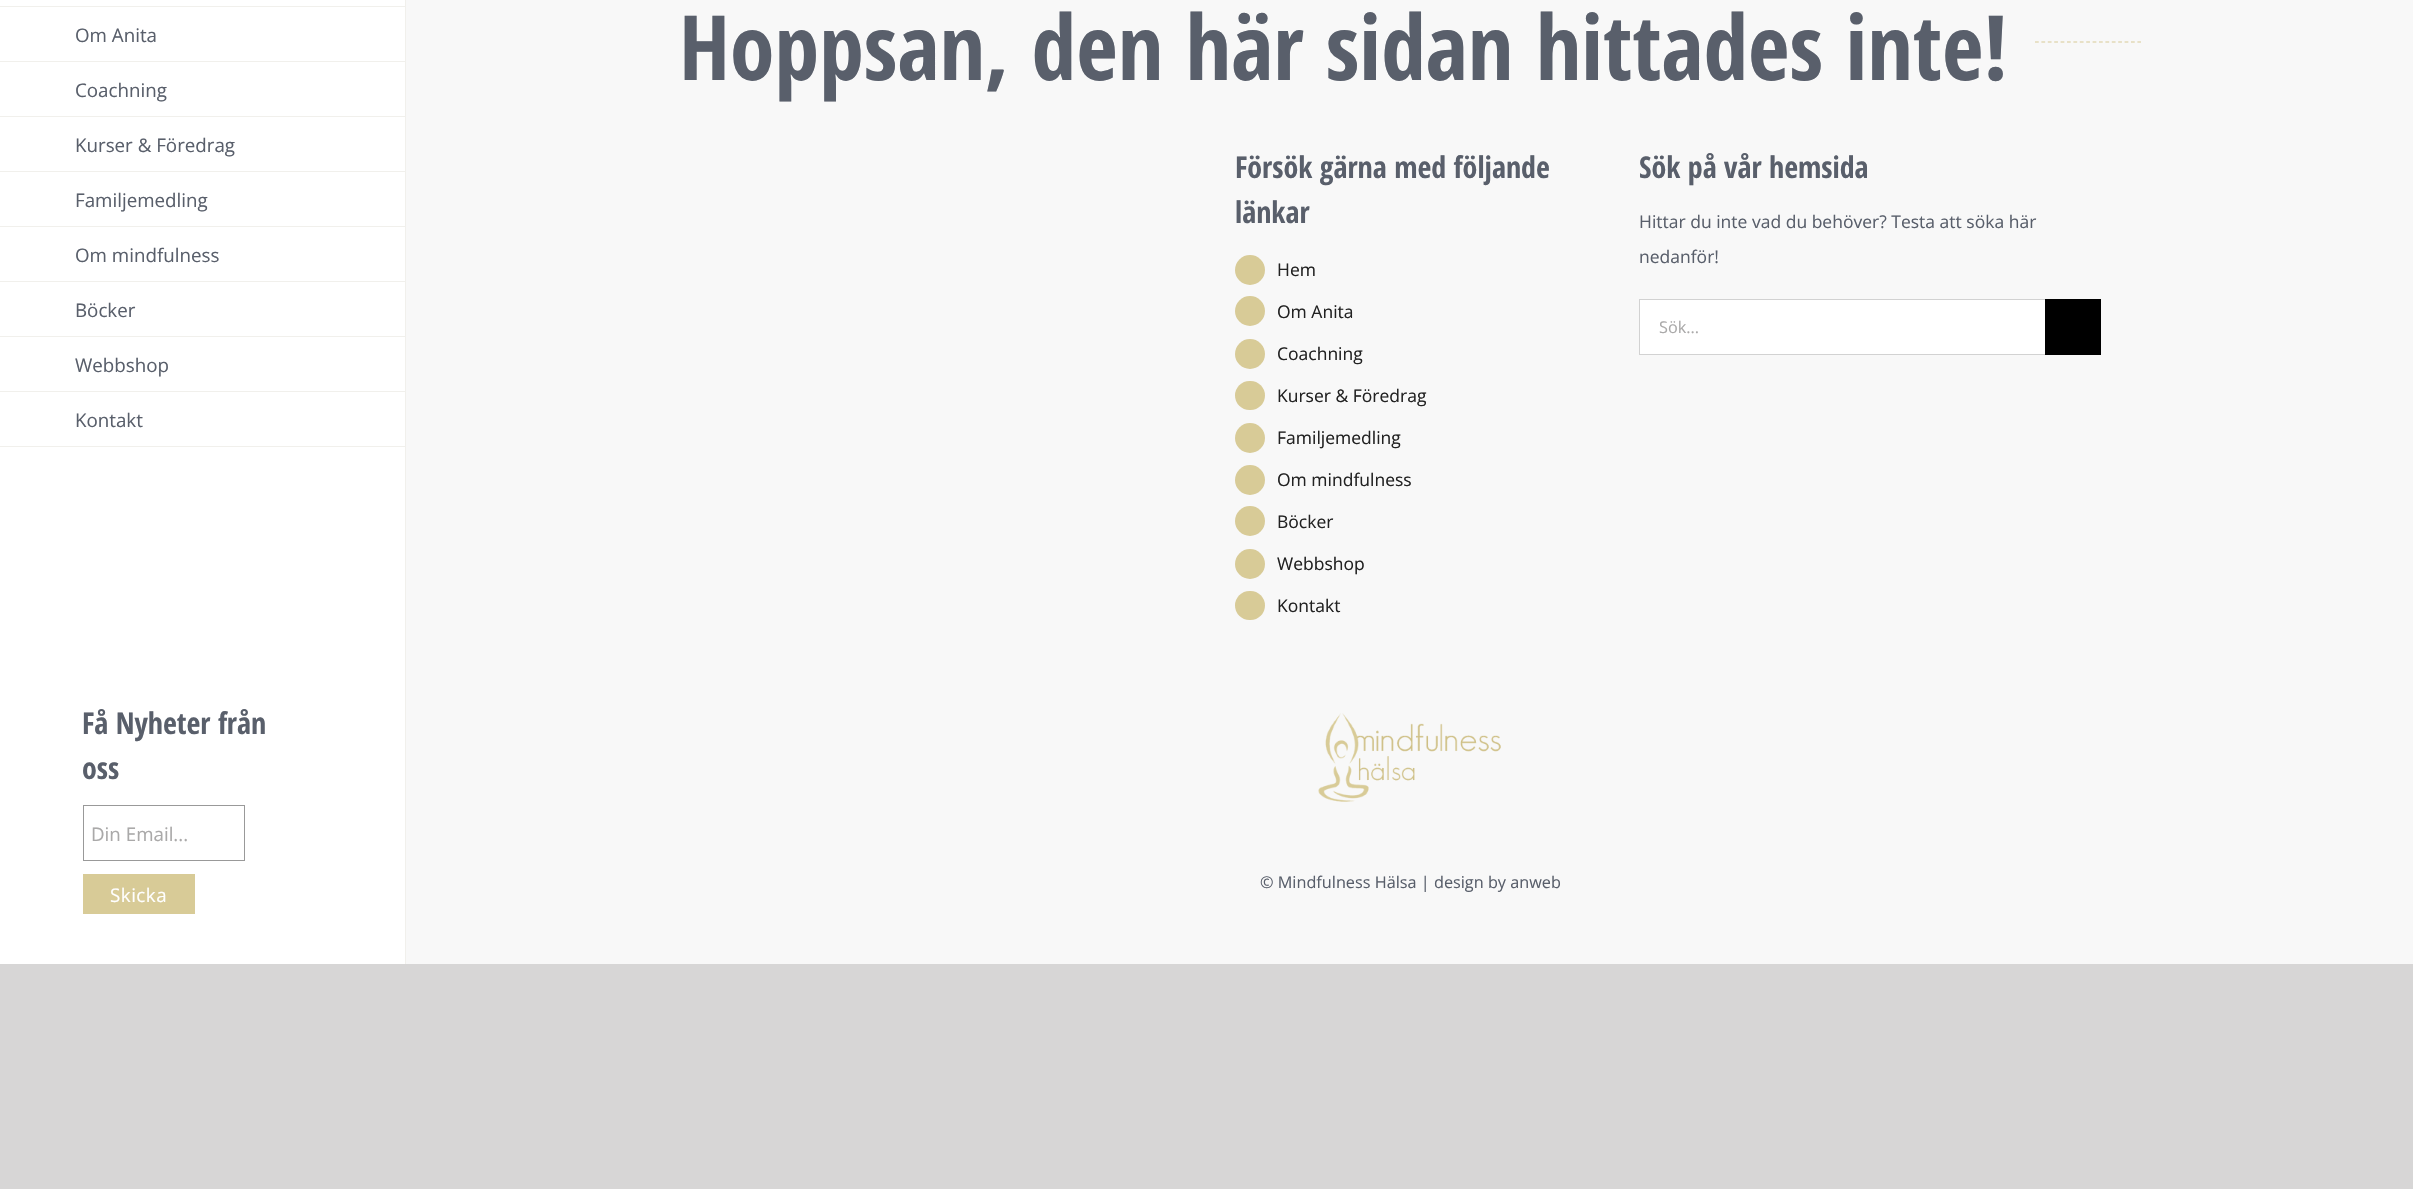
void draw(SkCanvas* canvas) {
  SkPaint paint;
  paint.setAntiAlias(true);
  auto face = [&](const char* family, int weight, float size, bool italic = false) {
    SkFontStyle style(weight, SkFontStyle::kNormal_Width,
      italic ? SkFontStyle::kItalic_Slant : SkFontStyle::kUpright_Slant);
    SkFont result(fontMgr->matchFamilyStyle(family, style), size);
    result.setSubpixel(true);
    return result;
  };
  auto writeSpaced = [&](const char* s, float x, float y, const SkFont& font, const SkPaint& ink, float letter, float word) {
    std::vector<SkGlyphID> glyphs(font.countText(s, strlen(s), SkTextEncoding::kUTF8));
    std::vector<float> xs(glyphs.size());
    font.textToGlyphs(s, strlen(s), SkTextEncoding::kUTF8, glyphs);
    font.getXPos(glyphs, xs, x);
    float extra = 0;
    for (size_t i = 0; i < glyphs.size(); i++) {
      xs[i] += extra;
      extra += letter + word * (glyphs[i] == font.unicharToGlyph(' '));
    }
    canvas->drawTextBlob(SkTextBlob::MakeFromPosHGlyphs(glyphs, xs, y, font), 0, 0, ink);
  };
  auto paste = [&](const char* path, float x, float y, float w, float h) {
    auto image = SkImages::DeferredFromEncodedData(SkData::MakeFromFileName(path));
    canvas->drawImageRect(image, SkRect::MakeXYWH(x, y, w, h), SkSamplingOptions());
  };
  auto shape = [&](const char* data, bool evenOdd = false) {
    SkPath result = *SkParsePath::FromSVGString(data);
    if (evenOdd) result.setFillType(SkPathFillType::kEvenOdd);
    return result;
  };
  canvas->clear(0xffd7d6d6);
  {
    const struct { float x, y, w, h; SkColor color; } items[] = {
      {406, 0, 2007, 964, 0xfff8f8f8},
      {0, 0, 405, 964, 0xffffffff},
      {405, 0, 1, 964, 0xfff1f0ec},
      {0, 6, 406, 1, 0xfff1f0ec},
      {0, 61, 406, 1, 0xfff1f0ec},
      {0, 116, 406, 1, 0xfff1f0ec},
      {0, 171, 406, 1, 0xfff1f0ec},
      {0, 226, 406, 1, 0xfff1f0ec},
      {0, 281, 406, 1, 0xfff1f0ec},
      {0, 336, 406, 1, 0xfff1f0ec},
      {0, 391, 406, 1, 0xfff1f0ec},
      {0, 446, 406, 1, 0xfff1f0ec},
    };
    for (auto [x, y, w, h, color] : items) {
      paint.setColor(color);
      canvas->drawRect(SkRect::MakeXYWH(x, y, w, h), paint);
    }
  }
  paint.setStroke(true);
  paint.setStrokeWidth(1);
  paint.setColor(0xff999999);
  canvas->drawRect(SkRect::MakeXYWH(83.5f, 805.5f, 161, 55), paint);
  paint.setStroke(false);
  paint.setColor(0xffd8cb97);
  canvas->drawRect(SkRect::MakeXYWH(83, 874, 112, 40), paint);
  paint.setStroke(true);
  paint.setStrokeWidth(1.2f);
  paint.setPathEffect(SkDashPathEffect::Make({{3.75f, 2.65f}}, 0));
  canvas->drawPath(shape("M2035 42H2141"), paint);
  paint.setPathEffect(nullptr);
  paint.setStroke(false);
  canvas->drawCircle(1250, 270, 15, paint);
  canvas->drawCircle(1250, 311, 15, paint);
  canvas->drawCircle(1250, 354, 15, paint);
  canvas->drawRoundRect(SkRect::MakeXYWH(1235, 381, 30, 29), 14.5f, 14.5f, paint);
  canvas->drawCircle(1250, 438, 15, paint);
  canvas->drawCircle(1250, 480, 15, paint);
  canvas->drawCircle(1250, 521, 15, paint);
  canvas->drawCircle(1250, 564, 15, paint);
  canvas->drawRoundRect(SkRect::MakeXYWH(1235, 591, 30, 29), 14.5f, 14.5f, paint);
  {
    const struct { float x, y, w, h; SkColor color; } items[] = {
      {1640, 300, 405, 54, 0xffffffff},
      {1639, 299, 406, 1, 0xffd2d2d2},
      {1639, 354, 406, 1, 0xffd2d2d2},
      {1639, 299, 1, 56, 0xffd2d2d2},
      {2045, 299, 56, 56, 0xff000000},
    };
    for (auto [x, y, w, h, color] : items) {
      paint.setColor(color);
      canvas->drawRect(SkRect::MakeXYWH(x, y, w, h), paint);
    }
  }
  paste("img/1.png", 1318, 713, 183, 89);
  auto f0 = face("Open Sans", 400, 18.75f);
  paint.setColor(0xff595f6b);
  {
    const struct { const char* s; float x, y; } items[] = {
      {"Om Anita", 75, 42},
      {"Coachning", 75, 97},
      {"Kurser & Föredrag", 75, 152},
      {"Familjemedling", 75, 207},
      {"Om mindfulness", 75, 262},
      {"Böcker", 75, 317},
      {"Webbshop", 75, 372},
      {"Kontakt", 75, 427},
    };
    for (auto [s, x, y] : items) {
      canvas->drawString(s, x, y, f0, paint);
    }
  }
  auto f1 = face("Open Sans Condensed", 700, 30);
  canvas->drawString("Få Nyheter från", 82, 734, f1, paint);
  canvas->drawString("oss", 82, 779, f1, paint);
  paint.setColor(0xffaaa9a9);
  canvas->drawString("Din Email...", 91, 841, f0, paint);
  paint.setColor(0xffffffff);
  writeSpaced("Skicka", 110, 902, f0, paint, 0.5f, 0);
  auto f2 = face("Open Sans Condensed", 700, 90);
  paint.setColor(0xff595f6b);
  canvas->drawString("Hoppsan, den här sidan hittades inte!", 679, 80, f2, paint);
  canvas->drawString("Försök gärna med följande", 1235, 178, f1, paint);
  canvas->drawString("länkar", 1235, 223, f1, paint);
  auto f3 = face("Open Sans", 400, 17.5f);
  paint.setColor(0xff222222);
  {
    const struct { const char* s; float x, y; } items[] = {
      {"Hem", 1277, 276},
      {"Om Anita", 1277, 318},
      {"Coachning", 1277, 360},
      {"Kurser & Föredrag", 1277, 402},
      {"Familjemedling", 1277, 444},
      {"Om mindfulness", 1277, 486},
      {"Böcker", 1277, 528},
      {"Webbshop", 1277, 570},
      {"Kontakt", 1277, 612},
    };
    for (auto [s, x, y] : items) {
      canvas->drawString(s, x, y, f3, paint);
    }
  }
  paint.setColor(0xff595f6b);
  canvas->drawString("Sök på vår hemsida", 1639, 178, f1, paint);
  canvas->drawString("Hittar du inte vad du behöver? Testa att söka här", 1639, 228, f3, paint);
  canvas->drawString("nedanför!", 1639, 263, f3, paint);
  auto f4 = face("Open Sans", 400, 16.25f);
  paint.setColor(0xffaaa9a9);
  canvas->drawString("Sök...", 1659, 333, f4, paint);
  paint.setColor(0xff595f6b);
  canvas->drawString("© Mindfulness Hälsa | design by anweb", 1260, 888, f4, paint);
}
